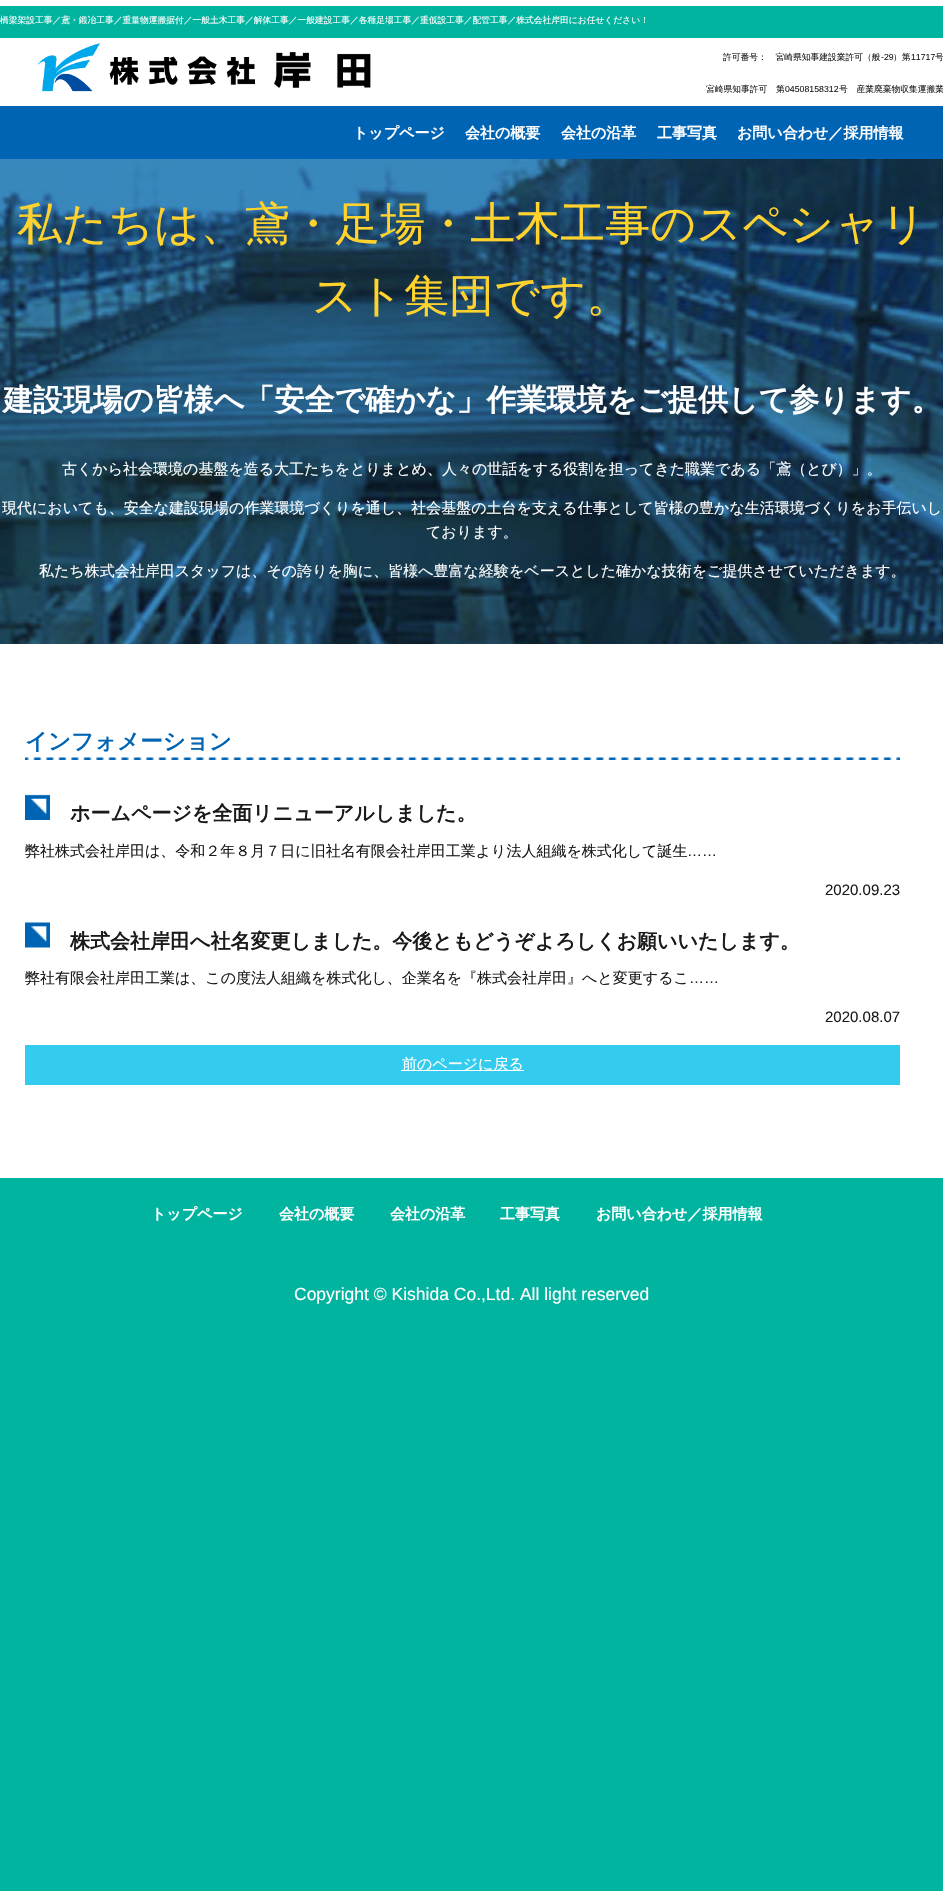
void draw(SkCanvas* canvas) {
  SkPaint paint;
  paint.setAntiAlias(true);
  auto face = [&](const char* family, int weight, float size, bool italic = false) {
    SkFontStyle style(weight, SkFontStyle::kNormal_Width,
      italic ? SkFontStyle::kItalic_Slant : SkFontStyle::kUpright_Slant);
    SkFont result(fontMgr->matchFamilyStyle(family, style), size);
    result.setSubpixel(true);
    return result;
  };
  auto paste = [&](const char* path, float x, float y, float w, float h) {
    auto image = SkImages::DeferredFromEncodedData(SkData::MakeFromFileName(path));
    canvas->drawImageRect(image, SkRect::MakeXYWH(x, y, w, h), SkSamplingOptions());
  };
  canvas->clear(0xff00b4a0);
  paste("img/1.png", 0, 159, 943, 485);
  {
    const struct { float x, y, w, h; SkColor color; } items[] = {
      {0, 106, 943, 53, 0xff0064b4},
      {0, 0, 943, 106, 0xffffffff},
      {0, 6, 943, 32, 0xff00b4a0},
    };
    for (auto [x, y, w, h, color] : items) {
      paint.setColor(color);
      canvas->drawRect(SkRect::MakeXYWH(x, y, w, h), paint);
    }
  }
  paste("img/2.png", 37, 43, 334, 49);
  paint.setColor(0xffffffff);
  canvas->drawRect(SkRect::MakeXYWH(0, 644, 943, 534), paint);
  paste("img/3.png", 25, 757, 875, 3);
  paste("img/4.png", 25, 794, 25, 26);
  paste("img/5.png", 25, 922, 25, 26);
  paint.setColor(0xff33ccee);
  canvas->drawRect(SkRect::MakeXYWH(25, 1045, 875, 40), paint);
  paint.setColor(0xffffffff);
  canvas->drawRect(SkRect::MakeXYWH(401, 1070, 123, 1), paint);
  auto f0 = face("WenQuanYi Zen Hei", 500, 8.75f);
  canvas->drawString("橋梁架設工事／鳶・鍛冶工事／重量物運搬据付／一般土木工事／解体工事／一般建設工事／各種足場工事／重仮設工事／配管工事／株式会社岸田にお任せください！", 0, 23, f0, paint);
  paint.setColor(0xff1a1a1a);
  canvas->drawString("許可番号：　宮崎県知事建設業許可（般", 723, 60, f0, paint);
  auto f1 = face("Liberation Sans", 400, 8.75f);
  canvas->drawString("-29", 881, 60, f1, paint);
  canvas->drawString("）第", 893, 60, f0, paint);
  canvas->drawString("11717", 911, 60, f1, paint);
  canvas->drawString("号", 935, 60, f0, paint);
  canvas->drawString("宮崎県知事許可　第", 706, 92, f0, paint);
  canvas->drawString("04508158312", 785, 92, f1, paint);
  canvas->drawString("号　産業廃棄物収集運搬業", 839, 92, f0, paint);
  auto f2 = face("WenQuanYi Zen Hei", 700, 15);
  paint.setColor(0xffffffff);
  {
    const struct { const char* s; float x, y; } items[] = {
      {"トップページ", 353, 138},
      {"会社の概要", 465, 138},
      {"会社の沿革", 561, 138},
      {"工事写真", 657, 138},
      {"お問い合わせ／採用情報", 737, 138},
    };
    for (auto [s, x, y] : items) {
      canvas->drawString(s, x, y, f2, paint);
    }
  }
  auto f3 = face("WenQuanYi Zen Hei", 500, 45);
  paint.setColor(0xffffd22d);
  canvas->drawString("私たちは、鳶・足場・土木工事のスペシャリ", 17, 239, f3, paint);
  canvas->drawString("スト集団です。", 312, 311, f3, paint);
  auto f4 = face("WenQuanYi Zen Hei", 700, 30);
  paint.setColor(0xffffffff);
  canvas->drawString("建設現場の皆様へ「安全で確かな」作業環境をご提供して参ります。", 3, 410, f4, paint);
  auto f5 = face("WenQuanYi Zen Hei", 500, 15);
  {
    const struct { const char* s; float x, y; } items[] = {
      {"古くから社会環境の基盤を造る大工たちをとりまとめ、人々の世話をする役割を担ってきた職業である「鳶（とび）」。", 62, 474},
      {"現代においても、安全な建設現場の作業環境づくりを通し、社会基盤の土台を支える仕事として皆様の豊かな生活環境づくりをお手伝いし", 2, 513},
      {"ております。", 426, 537},
      {"私たち株式会社岸田スタッフは、その誇りを胸に、皆様へ豊富な経験をベースとした確かな技術をご提供させていただきます。", 39, 576},
    };
    for (auto [s, x, y] : items) {
      canvas->drawString(s, x, y, f5, paint);
    }
  }
  auto f6 = face("WenQuanYi Zen Hei", 700, 22.5f);
  paint.setColor(0xff0064b4);
  canvas->drawString("インフォメーション", 25, 749, f6, paint);
  auto f7 = face("WenQuanYi Zen Hei", 700, 20);
  paint.setColor(0xff1a1a1a);
  canvas->drawString("ホームページを全面リニューアルしました。", 70, 820, f7, paint);
  canvas->drawString("弊社株式会社岸田は、令和２年８月７日に旧社名有限会社岸田工業より法人組織を株式化して誕生", 25, 856, f5, paint);
  auto f8 = face("Liberation Sans", 400, 15);
  canvas->drawString("……", 687, 856, f8, paint);
  canvas->drawString("2020.09.23", 825, 895, f8, paint);
  canvas->drawString("株式会社岸田へ社名変更しました。今後ともどうぞよろしくお願いいたします。", 70, 948, f7, paint);
  canvas->drawString("弊社有限会社岸田工業は、この度法人組織を株式化し、企業名を『株式会社岸田』へと変更するこ", 25, 983, f5, paint);
  canvas->drawString("……", 689, 983, f8, paint);
  canvas->drawString("2020.08.07", 825, 1022, f8, paint);
  paint.setColor(0xffffffff);
  canvas->drawString("前のページに戻る", 402, 1069, f5, paint);
  {
    const struct { const char* s; float x, y; } items[] = {
      {"トップページ", 151, 1219},
      {"会社の概要", 279, 1219},
      {"会社の沿革", 390, 1219},
      {"工事写真", 500, 1219},
      {"お問い合わせ／採用情報", 596, 1219},
    };
    for (auto [s, x, y] : items) {
      canvas->drawString(s, x, y, f2, paint);
    }
  }
  auto f9 = face("Liberation Sans", 400, 17.5f);
  canvas->drawString("Copyright © Kishida Co.,Ltd. All light reserved", 294, 1300, f9, paint);
}
